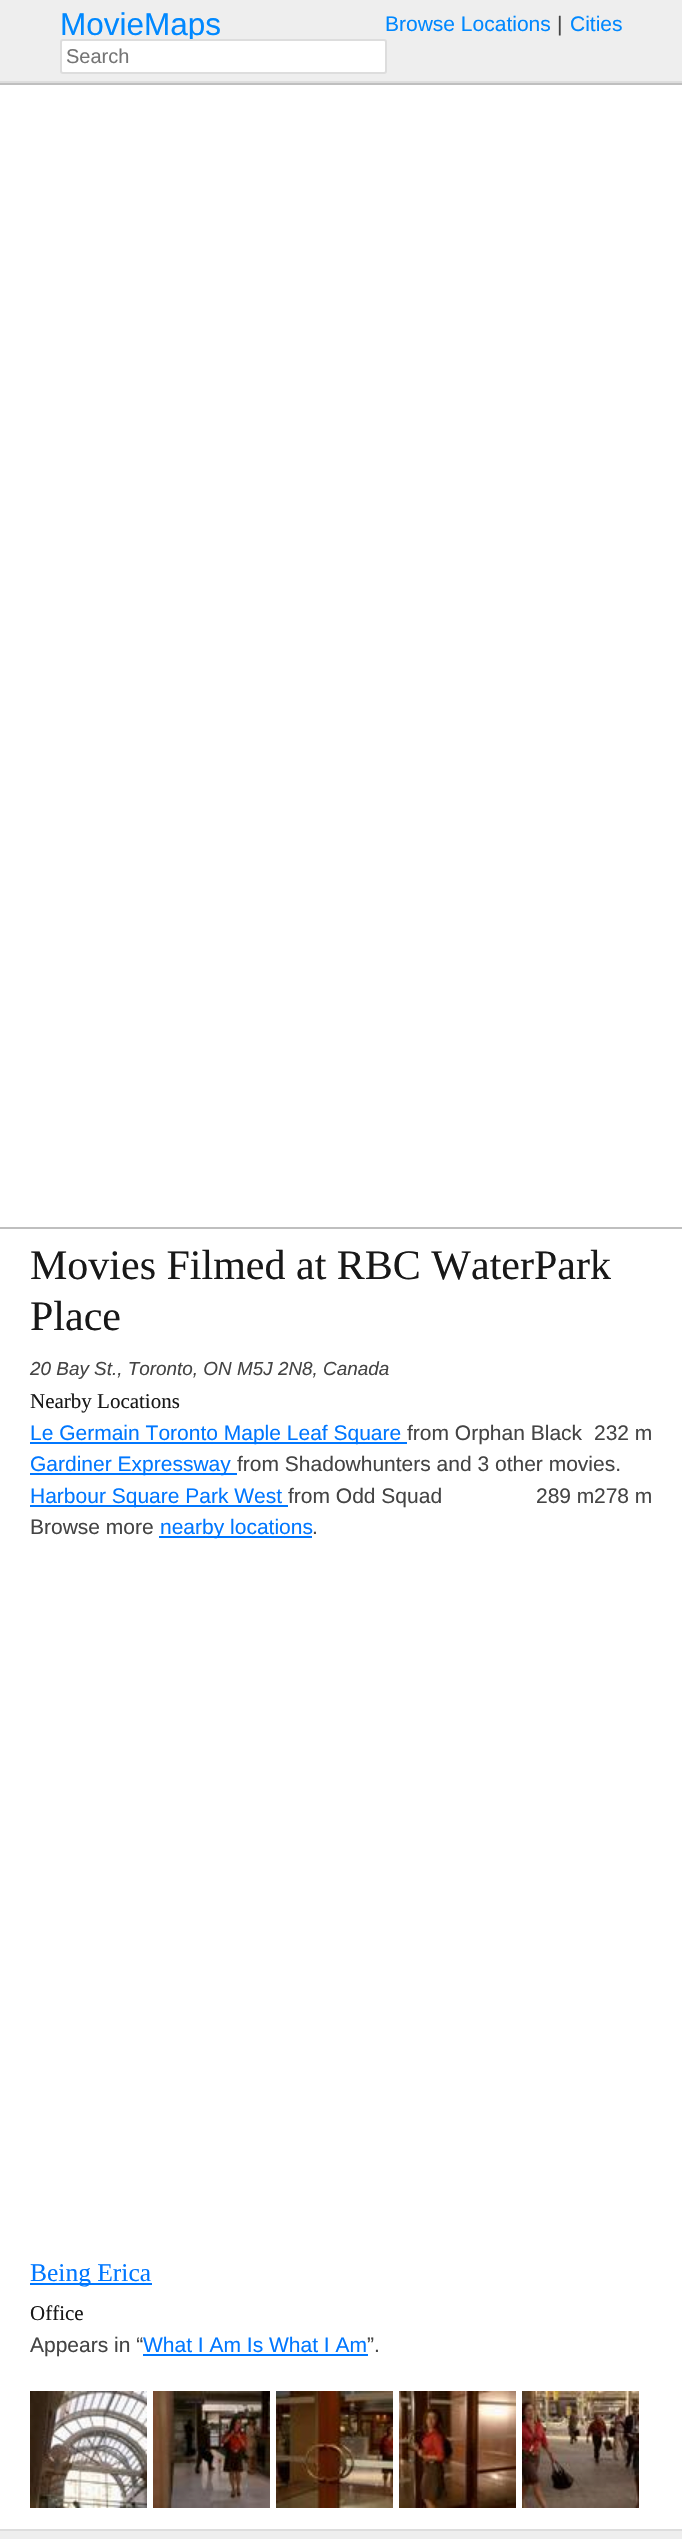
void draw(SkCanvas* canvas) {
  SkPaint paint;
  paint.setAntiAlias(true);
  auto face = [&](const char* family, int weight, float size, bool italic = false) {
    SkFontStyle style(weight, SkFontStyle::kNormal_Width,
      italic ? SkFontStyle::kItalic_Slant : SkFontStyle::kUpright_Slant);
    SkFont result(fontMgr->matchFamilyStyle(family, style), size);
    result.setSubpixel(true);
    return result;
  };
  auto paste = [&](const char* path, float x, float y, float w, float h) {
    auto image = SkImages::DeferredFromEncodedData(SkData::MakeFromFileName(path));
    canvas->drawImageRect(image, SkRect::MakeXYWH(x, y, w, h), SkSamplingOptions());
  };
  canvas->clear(0xffffffff);
  {
    const struct { float x, y, w, h; SkColor color; } items[] = {
      {0, 0, 682, 81, 0xffeeeeee},
      {0, 81, 682, 2, 0xffdddddd},
      {0, 83, 682, 2, 0xffbfbfbf},
      {0, 1227, 682, 2, 0xffbfbfbf},
      {30, 1442, 377, 2, 0xff0077ff},
      {30, 1473, 207, 2, 0xff0077ff},
      {30, 1505, 258, 2, 0xff0077ff},
      {159, 1536, 153, 2, 0xff0077ff},
      {30, 2283, 122, 2, 0xff0077ff},
      {143, 2354, 225, 2, 0xff0077ff},
    };
    for (auto [x, y, w, h, color] : items) {
      paint.setColor(color);
      canvas->drawRect(SkRect::MakeXYWH(x, y, w, h), paint);
    }
  }
  paste("img/1.png", 30, 2391, 117, 117);
  paste("img/2.png", 153, 2391, 117, 117);
  paste("img/3.png", 276, 2391, 117, 117);
  paste("img/4.png", 399, 2391, 117, 117);
  paste("img/5.png", 522, 2391, 117, 117);
  paint.setColor(0xffeeeeee);
  canvas->drawRect(SkRect::MakeXYWH(0, 2531, 682, 8), paint);
  paint.setColor(0xffdddddd);
  canvas->drawRect(SkRect::MakeXYWH(0, 2529, 682, 2), paint);
  auto f0 = face("Liberation Sans", 400, 31.5f);
  paint.setColor(0xff0088ff);
  canvas->drawString("MovieMaps", 60, 35, f0, paint);
  auto f1 = face("Liberation Sans", 400, 21);
  canvas->drawString("Browse Locations", 385, 31, f1, paint);
  paint.setColor(0xff444444);
  canvas->drawString("|", 557, 31, f1, paint);
  paint.setColor(0xff0088ff);
  canvas->drawString("Cities", 570, 31, f1, paint);
  paint.setColor(0xffffffff);
  canvas->drawRoundRect(SkRect::MakeXYWH(61, 40, 325, 33), 2, 2, paint);
  paint.setStroke(true);
  paint.setStrokeWidth(2);
  paint.setColor(0xffdddddd);
  canvas->drawRoundRect(SkRect::MakeXYWH(61, 40, 325, 33), 2, 2, paint);
  auto f2 = face("Liberation Sans", 400, 20);
  paint.setStroke(false);
  paint.setColor(0xff757575);
  canvas->drawString("Search", 66, 63, f2, paint);
  auto f3 = face("Liberation Serif", 400, 42);
  paint.setColor(0xff181818);
  canvas->drawString("Movies Filmed at RBC WaterPark", 30, 1279, f3, paint);
  canvas->drawString("Place", 30, 1330, f3, paint);
  auto f4 = face("Liberation Sans", 400, 18.9f, true);
  paint.setColor(0xff444444);
  canvas->drawString("20 Bay St., Toronto, ON M5J 2N8, Canada", 30, 1375, f4, paint);
  auto f5 = face("Liberation Serif", 400, 21);
  paint.setColor(0xff181818);
  canvas->drawString("Nearby Locations", 30, 1408, f5, paint);
  paint.setColor(0xff0077ff);
  canvas->drawString("Le Germain Toronto Maple Leaf Square", 30, 1440, f1, paint);
  paint.setColor(0xff444444);
  canvas->drawString("from Orphan Black", 407, 1440, f1, paint);
  canvas->drawString("232 m", 594, 1440, f1, paint);
  paint.setColor(0xff0077ff);
  canvas->drawString("Gardiner Expressway", 30, 1471, f1, paint);
  paint.setColor(0xff444444);
  canvas->drawString("from Shadowhunters and 3 other movies.", 237, 1471, f1, paint);
  paint.setColor(0xff0077ff);
  canvas->drawString("Harbour Square Park West", 30, 1503, f1, paint);
  paint.setColor(0xff444444);
  {
    const struct { const char* s; float x, y; } items[] = {
      {"from Odd Squad", 288, 1503},
      {"289 m", 536, 1503},
      {"278 m", 594, 1503},
      {"Browse more", 30, 1534},
    };
    for (auto [s, x, y] : items) {
      canvas->drawString(s, x, y, f1, paint);
    }
  }
  paint.setColor(0xff0077ff);
  canvas->drawString("nearby locations", 160, 1534, f1, paint);
  paint.setColor(0xff444444);
  canvas->drawString(".", 312, 1534, f1, paint);
  auto f6 = face("Liberation Serif", 400, 25.5f);
  paint.setColor(0xff0077ff);
  canvas->drawString("Being Erica", 30, 2281, f6, paint);
  paint.setColor(0xff181818);
  canvas->drawString("Office", 30, 2320, f5, paint);
  paint.setColor(0xff444444);
  canvas->drawString("Appears in “", 30, 2352, f1, paint);
  paint.setColor(0xff0077ff);
  canvas->drawString("What I Am Is What I Am", 143, 2352, f1, paint);
  paint.setColor(0xff444444);
  canvas->drawString("”.", 367, 2352, f1, paint);
}
